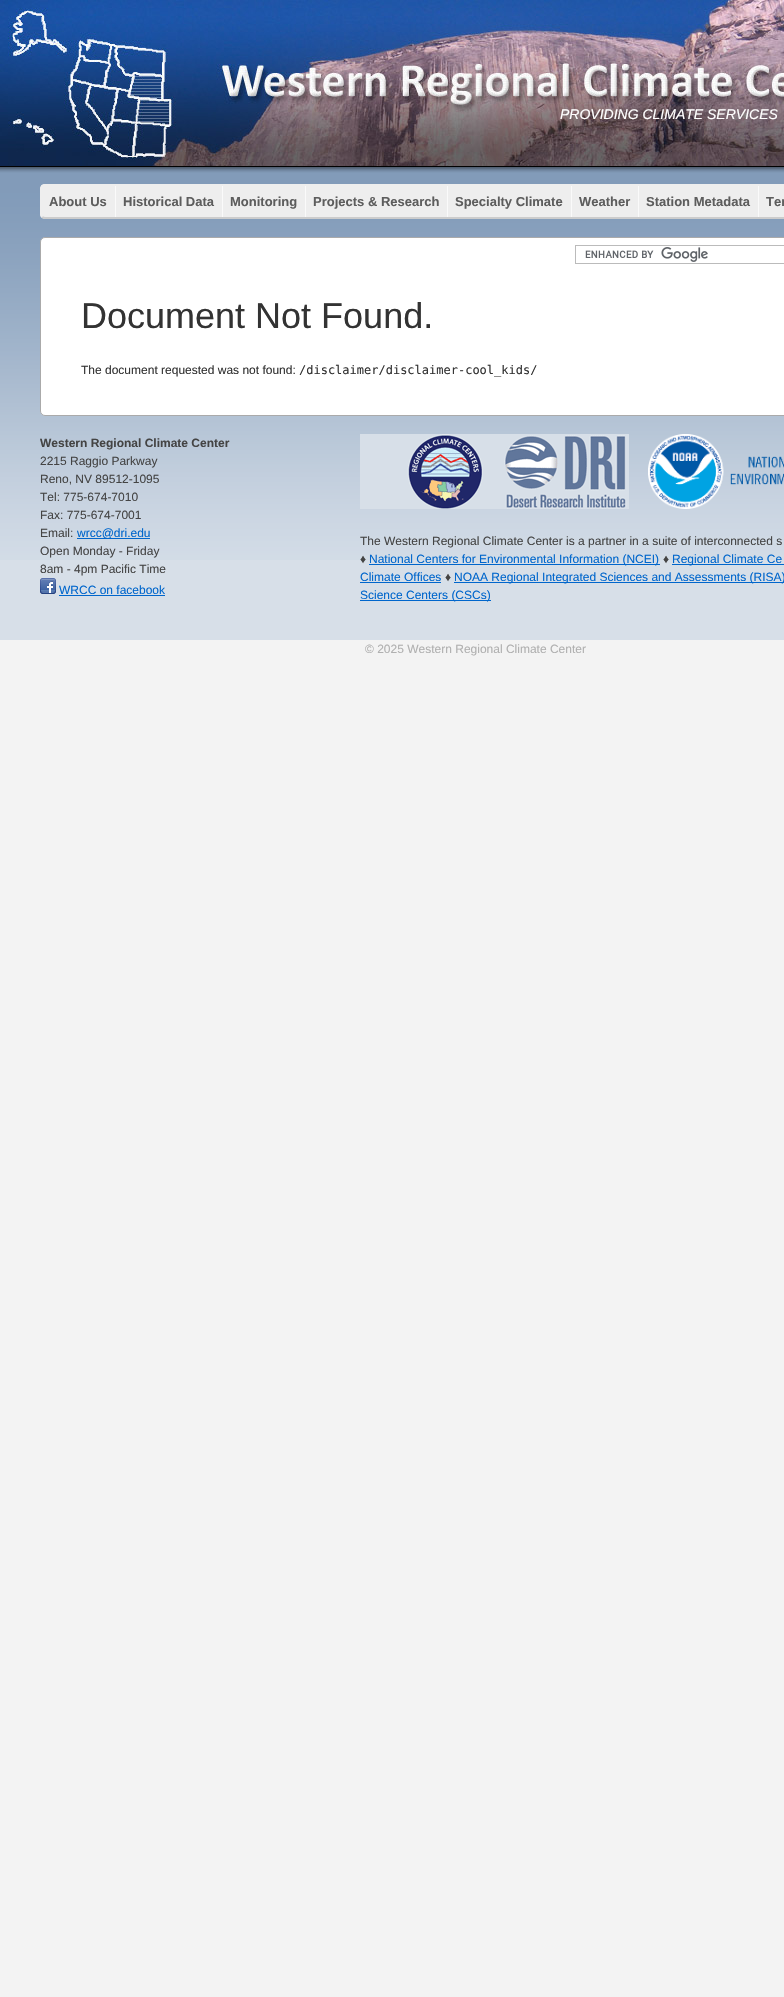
void draw(SkCanvas* canvas) {
  SkPaint paint;
  paint.setAntiAlias(true);
  auto face = [&](const char* family, int weight, float size, bool italic = false) {
    SkFontStyle style(weight, SkFontStyle::kNormal_Width,
      italic ? SkFontStyle::kItalic_Slant : SkFontStyle::kUpright_Slant);
    SkFont result(fontMgr->matchFamilyStyle(family, style), size);
    result.setSubpixel(true);
    return result;
  };
  auto paste = [&](const char* path, float x, float y, float w, float h) {
    auto image = SkImages::DeferredFromEncodedData(SkData::MakeFromFileName(path));
    canvas->drawImageRect(image, SkRect::MakeXYWH(x, y, w, h), SkSamplingOptions());
  };
  auto shape = [&](const char* data, bool evenOdd = false) {
    SkPath result = *SkParsePath::FromSVGString(data);
    if (evenOdd) result.setFillType(SkPathFillType::kEvenOdd);
    return result;
  };
  canvas->clear(0xfff3f3f3);
  paste("img/1.png", 0, 0, 784, 166);
  paint.setColor(0xffd7dfe8);
  canvas->drawRect(SkRect::MakeXYWH(0, 560, 784, 80), paint);
  paste("img/2.png", 0, 166, 784, 394);
  paint.setColor(0xffeeeeee);
  canvas->drawRoundRect(SkRect::MakeXYWH(40, 184, 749, 35), 5, 5, paint);
  paint.setStroke(true);
  paint.setStrokeWidth(2);
  paint.setColor(0xffcccccc);
  canvas->drawPath(shape("M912 186C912.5 187 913 188 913 189V214C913 215 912.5 216 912 217C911 217.5 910 218 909 218H45C44 218 43 217.5 42 217"), paint);
  paint.setColor(0xffeeeeee);
  canvas->drawPath(shape("M42 217C41.5 216 41 215 41 214V189C41 188 41.5 187 42 186C43 185.5 44 185 45 185H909C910 185 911 185.5 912 186"), paint);
  paint.setStroke(false);
  {
    const struct { float x, y, w, h; SkColor color; } items[] = {
      {115, 186, 1, 31, 0xfffafafa},
      {222, 186, 1, 31, 0xfffafafa},
      {305, 186, 1, 31, 0xfffafafa},
      {447, 186, 1, 31, 0xfffafafa},
      {571, 186, 1, 31, 0xfffafafa},
      {638, 186, 1, 31, 0xfffafafa},
      {758, 186, 1, 31, 0xfffafafa},
    };
    for (auto [x, y, w, h, color] : items) {
      paint.setColor(color);
      canvas->drawRect(SkRect::MakeXYWH(x, y, w, h), paint);
    }
  }
  paint.setColor(0xffffffff);
  canvas->drawRoundRect(SkRect::MakeXYWH(40.5f, 237.5f, 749, 178), 4.5f, 4.5f, paint);
  paint.setStroke(true);
  paint.setStrokeWidth(1);
  paint.setColor(0xffaaaaaa);
  canvas->drawRoundRect(SkRect::MakeXYWH(40.5f, 237.5f, 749, 178), 4.5f, 4.5f, paint);
  paste("img/3.png", 585, 247, 123, 15);
  paint.setColor(0xffbbbbbb);
  canvas->drawRect(SkRect::MakeXYWH(575.5f, 245.5f, 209, 18), paint);
  paint.setStroke(false);
  paint.setColor(0xff0066cc);
  canvas->drawRect(SkRect::MakeXYWH(77, 538, 73, 1), paint);
  paste("img/4.png", 40, 578, 16, 16);
  canvas->drawRect(SkRect::MakeXYWH(59, 595, 106, 1), paint);
  paste("img/5.png", 360, 434, 269, 75);
  paste("img/6.png", 648, 434, 136, 75);
  {
    const struct { float x, y, w, h; SkColor color; } items[] = {
      {369, 564, 291, 1, 0xff0066cc},
      {672, 564, 112, 1, 0xff0066cc},
      {360, 582, 81, 1, 0xff0066cc},
      {454, 582, 330, 1, 0xff0066cc},
      {360, 600, 131, 1, 0xff0066cc},
    };
    for (auto [x, y, w, h, color] : items) {
      paint.setColor(color);
      canvas->drawRect(SkRect::MakeXYWH(x, y, w, h), paint);
    }
  }
  auto f0 = face("Liberation Sans", 400, 14, true);
  paint.setColor(0xffffffff);
  canvas->drawString("PROVIDING CLIMATE SERVICES", 560, 119, f0, paint);
  auto f1 = face("Liberation Sans", 700, 13);
  paint.setColor(0xff5d5d5d);
  {
    const struct { const char* s; float x, y; } items[] = {
      {"About Us", 49, 206},
      {"Historical Data", 123, 206},
      {"Monitoring", 230, 206},
      {"Projects & Research", 313, 206},
      {"Specialty Climate", 455, 206},
      {"Weather", 579, 206},
      {"Station Metadata", 646, 206},
      {"Ter", 766, 206},
    };
    for (auto [s, x, y] : items) {
      canvas->drawString(s, x, y, f1, paint);
    }
  }
  auto f2 = face("Liberation Sans", 400, 36);
  paint.setColor(0xff333333);
  canvas->drawString("Document Not Found.", 81, 328, f2, paint);
  auto f3 = face("Liberation Sans", 400, 12);
  canvas->drawString("The document requested was not found:", 81, 374, f3, paint);
  auto f4 = face("DejaVu Sans Mono", 400, 12);
  canvas->drawString("/disclaimer/disclaimer-cool_kids/", 299, 374, f4, paint);
  auto f5 = face("Liberation Sans", 700, 12);
  paint.setColor(0xff444444);
  canvas->drawString("Western Regional Climate Center", 40, 447, f5, paint);
  {
    const struct { const char* s; float x, y; } items[] = {
      {"2215 Raggio Parkway", 40, 465},
      {"Reno, NV 89512-1095", 40, 483},
      {"Tel: 775-674-7010", 40, 501},
      {"Fax: 775-674-7001", 40, 519},
      {"Email:", 40, 537},
    };
    for (auto [s, x, y] : items) {
      canvas->drawString(s, x, y, f3, paint);
    }
  }
  paint.setColor(0xff0066cc);
  canvas->drawString("wrcc@dri.edu", 77, 537, f3, paint);
  paint.setColor(0xff444444);
  canvas->drawString("Open Monday - Friday", 40, 555, f3, paint);
  canvas->drawString("8am - 4pm Pacific Time", 40, 573, f3, paint);
  paint.setColor(0xff0066cc);
  canvas->drawString("WRCC on facebook", 59, 594, f3, paint);
  paint.setColor(0xff444444);
  canvas->drawString("The Western Regional Climate Center is a partner in a suite of interconnected s", 360, 545, f3, paint);
  canvas->drawString("♦", 360, 563, f3, paint);
  paint.setColor(0xff0066cc);
  canvas->drawString("National Centers for Environmental Information (NCEI)", 369, 563, f3, paint);
  paint.setColor(0xff444444);
  canvas->drawString("♦", 663, 563, f3, paint);
  paint.setColor(0xff0066cc);
  canvas->drawString("Regional Climate Ce", 672, 563, f3, paint);
  canvas->drawString("Climate Offices", 360, 581, f3, paint);
  paint.setColor(0xff444444);
  canvas->drawString("♦", 445, 581, f3, paint);
  paint.setColor(0xff0066cc);
  canvas->drawString("NOAA Regional Integrated Sciences and Assessments (RISA)", 454, 581, f3, paint);
  canvas->drawString("Science Centers (CSCs)", 360, 599, f3, paint);
  paint.setColor(0xffb0b0b0);
  canvas->drawString("© 2025 Western Regional Climate Center", 365, 653, f3, paint);
}
